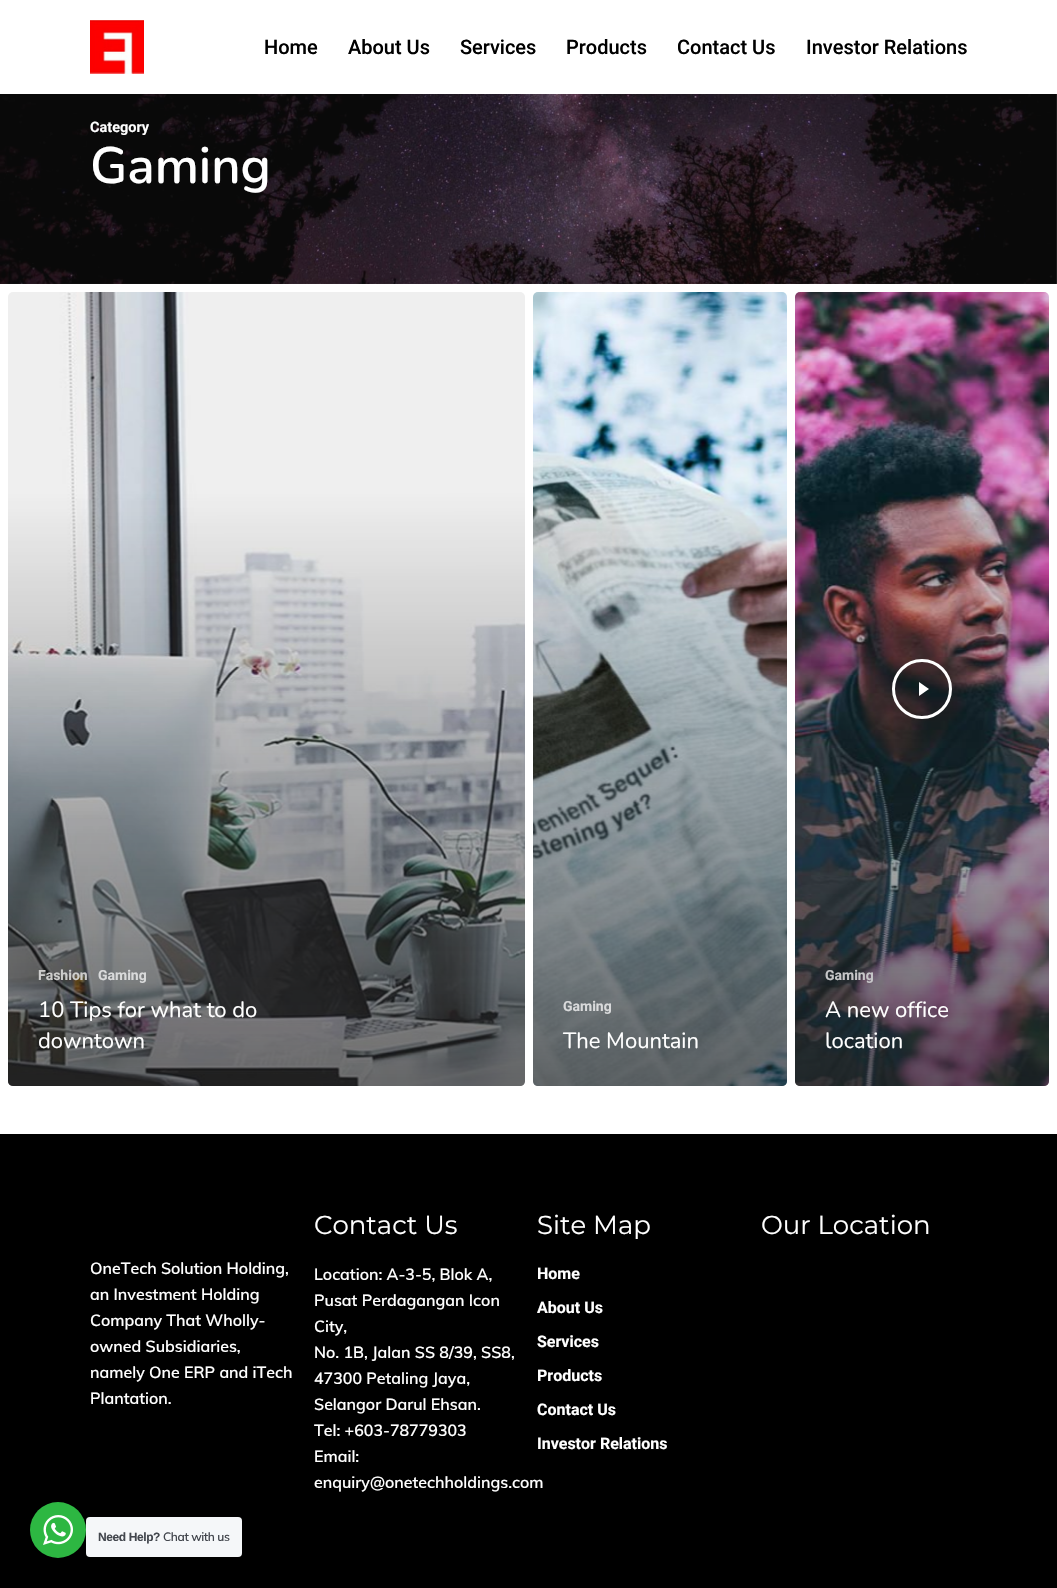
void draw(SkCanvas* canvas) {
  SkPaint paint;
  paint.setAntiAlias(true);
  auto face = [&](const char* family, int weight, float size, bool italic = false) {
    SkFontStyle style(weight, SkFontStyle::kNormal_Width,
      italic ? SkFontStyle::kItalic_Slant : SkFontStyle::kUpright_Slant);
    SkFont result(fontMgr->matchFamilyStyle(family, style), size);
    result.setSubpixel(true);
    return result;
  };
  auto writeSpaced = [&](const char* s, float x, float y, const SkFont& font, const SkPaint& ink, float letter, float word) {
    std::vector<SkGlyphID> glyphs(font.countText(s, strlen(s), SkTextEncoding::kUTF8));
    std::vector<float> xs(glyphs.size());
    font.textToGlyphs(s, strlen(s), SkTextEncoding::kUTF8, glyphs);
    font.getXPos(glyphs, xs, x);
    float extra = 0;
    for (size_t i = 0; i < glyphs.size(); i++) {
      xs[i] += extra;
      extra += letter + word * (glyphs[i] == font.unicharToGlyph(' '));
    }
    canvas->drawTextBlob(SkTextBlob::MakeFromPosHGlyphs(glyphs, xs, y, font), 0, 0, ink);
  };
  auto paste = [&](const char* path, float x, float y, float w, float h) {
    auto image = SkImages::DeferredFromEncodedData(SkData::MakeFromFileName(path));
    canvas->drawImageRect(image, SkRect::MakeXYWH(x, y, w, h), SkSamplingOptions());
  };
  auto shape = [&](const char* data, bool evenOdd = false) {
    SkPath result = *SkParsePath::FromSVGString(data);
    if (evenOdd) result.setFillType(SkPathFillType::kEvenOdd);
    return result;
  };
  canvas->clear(0xffffffff);
  paste("img/1.png", 90, 20, 54, 54);
  paste("img/2.png", 0, 94, 1057, 190);
  paste("img/3.png", 8, 292, 517, 794);
  {
    const SkColor colors[] = {0x00232323, 0xa6232323};
    const float stops[] = {0, 1};
    const SkPoint ends[] = {{267, 492}, {268, 1090}};
    paint.setShader(SkGradientShader::MakeLinear(ends, colors, stops, 2, SkTileMode::kClamp));
    paint.setAlpha(255);
  }
  canvas->drawPath(shape("M8 492H525V1081C525 1084 523 1086 520 1086H13C10 1086 8 1084 8 1081Z"), paint);
  paste("img/4.png", 533, 292, 254, 794);
  {
    const SkColor colors[] = {0x00232323, 0xa6232323};
    const float stops[] = {0, 1};
    const SkPoint ends[] = {{661, 492}, {661, 1090}};
    paint.setShader(SkGradientShader::MakeLinear(ends, colors, stops, 2, SkTileMode::kClamp));
    paint.setAlpha(255);
  }
  canvas->drawPath(shape("M533 492H787V1081C787 1084 785 1086 782 1086H538C535 1086 533 1084 533 1081Z"), paint);
  paste("img/5.png", 795, 292, 254, 794);
  {
    const SkColor colors[] = {0x00232323, 0xa6232323};
    const float stops[] = {0, 1};
    const SkPoint ends[] = {{923, 492}, {923, 1090}};
    paint.setShader(SkGradientShader::MakeLinear(ends, colors, stops, 2, SkTileMode::kClamp));
    paint.setAlpha(255);
  }
  canvas->drawPath(shape("M795 492H1049V1081C1049 1084 1047 1086 1044 1086H800C797 1086 795 1084 795 1081Z"), paint);
  paint.setShader(nullptr);
  paint.setColor(0xffffffff);
  canvas->drawPath(shape("M919 682V696L929 689Z"), paint);
  paint.setStroke(true);
  paint.setStrokeWidth(3);
  canvas->drawCircle(922, 689, 28.5f, paint);
  paint.setStroke(false);
  paint.setColor(0xff000000);
  canvas->drawRect(SkRect::MakeXYWH(0, 1134, 1057, 454), paint);
  paint.setColor(0xff2db742);
  canvas->drawCircle(58, 1530, 28, paint);
  paste("img/6.png", 43, 1515, 30, 30);
  paint.setColor(0xfff5f7f9);
  canvas->drawRoundRect(SkRect::MakeXYWH(86, 1517, 156, 40), 4, 4, paint);
  auto f0 = face("Roboto", 500, 20);
  paint.setColor(0xff000000);
  {
    const struct { const char* s; float x, y; } items[] = {
      {"Home", 264, 54},
      {"About Us", 348, 54},
      {"Services", 460, 54},
      {"Products", 566, 54},
      {"Contact Us", 677, 54},
      {"Investor Relations", 806, 54},
    };
    for (auto [s, x, y] : items) {
      canvas->drawString(s, x, y, f0, paint);
    }
  }
  auto f1 = face("Roboto", 700, 14.5f);
  paint.setColor(0xffffffff);
  canvas->drawString("Category", 90, 132, f1, paint);
  auto f2 = face("Nunito", 600, 51);
  canvas->drawString("Gaming", 90, 183, f2, paint);
  auto f3 = face("Roboto", 700, 14);
  paint.setColor(0xffcdcdcc);
  canvas->drawString("Fashion", 38, 980, f3, paint);
  paint.setColor(0xffd9dadb);
  canvas->drawString("Gaming", 98, 980, f3, paint);
  auto f4 = face("Nunito", 400, 22);
  paint.setColor(0xffffffff);
  canvas->drawString("10 Tips for what to do", 38, 1017, f4, paint);
  canvas->drawString("downtown", 38, 1048, f4, paint);
  paint.setColor(0xffd9dadb);
  canvas->drawString("Gaming", 563, 1011, f3, paint);
  paint.setColor(0xffffffff);
  canvas->drawString("The Mountain", 563, 1048, f4, paint);
  paint.setColor(0xffc6c6c8);
  canvas->drawString("Gaming", 825, 980, f3, paint);
  paint.setColor(0xffffffff);
  canvas->drawString("A new office", 825, 1017, f4, paint);
  canvas->drawString("location", 825, 1048, f4, paint);
  auto f5 = face("Muli", 600, 16);
  {
    const struct { const char* s; float x, y; } items[] = {
      {"OneTech Solution Holding,", 90, 1274},
      {"an Investment Holding", 90, 1300},
      {"Company That Wholly-", 90, 1326},
      {"owned Subsidiaries,", 90, 1352},
      {"namely One ERP and iTech", 90, 1378},
      {"Plantation.", 90, 1404},
    };
    for (auto [s, x, y] : items) {
      canvas->drawString(s, x, y, f5, paint);
    }
  }
  auto f6 = face("Montserrat", 400, 26);
  canvas->drawString("Contact Us", 314, 1234, f6, paint);
  {
    const struct { const char* s; float x, y; } items[] = {
      {"Location: A-3-5, Blok A,", 314, 1280},
      {"Pusat Perdagangan Icon", 314, 1306},
      {"City,", 314, 1332},
      {"No. 1B, Jalan SS 8/39, SS8,", 314, 1358},
      {"47300 Petaling Jaya,", 314, 1384},
      {"Selangor Darul Ehsan.", 314, 1410},
      {"Tel: +603-78779303", 314, 1436},
      {"Email:", 314, 1462},
      {"enquiry@onetechholdings.com", 314, 1488},
    };
    for (auto [s, x, y] : items) {
      canvas->drawString(s, x, y, f5, paint);
    }
  }
  canvas->drawString("Site Map", 537, 1234, f6, paint);
  auto f7 = face("Roboto", 700, 16);
  {
    const struct { const char* s; float x, y; } items[] = {
      {"Home", 537, 1279},
      {"About Us", 537, 1313},
      {"Services", 537, 1347},
      {"Products", 537, 1381},
      {"Contact Us", 537, 1415},
      {"Investor Relations", 537, 1449},
    };
    for (auto [s, x, y] : items) {
      canvas->drawString(s, x, y, f7, paint);
    }
  }
  canvas->drawString("Our Location", 761, 1234, f6, paint);
  auto f8 = face("Liberation Sans", 700, 12);
  paint.setColor(0xff43474e);
  writeSpaced("Need Help?", 98, 1541, f8, paint, -0.4f, 0);
  auto f9 = face("Muli", 600, 12);
  writeSpaced("Chat with us", 163, 1541, f9, paint, -0.4f, 0);
}
